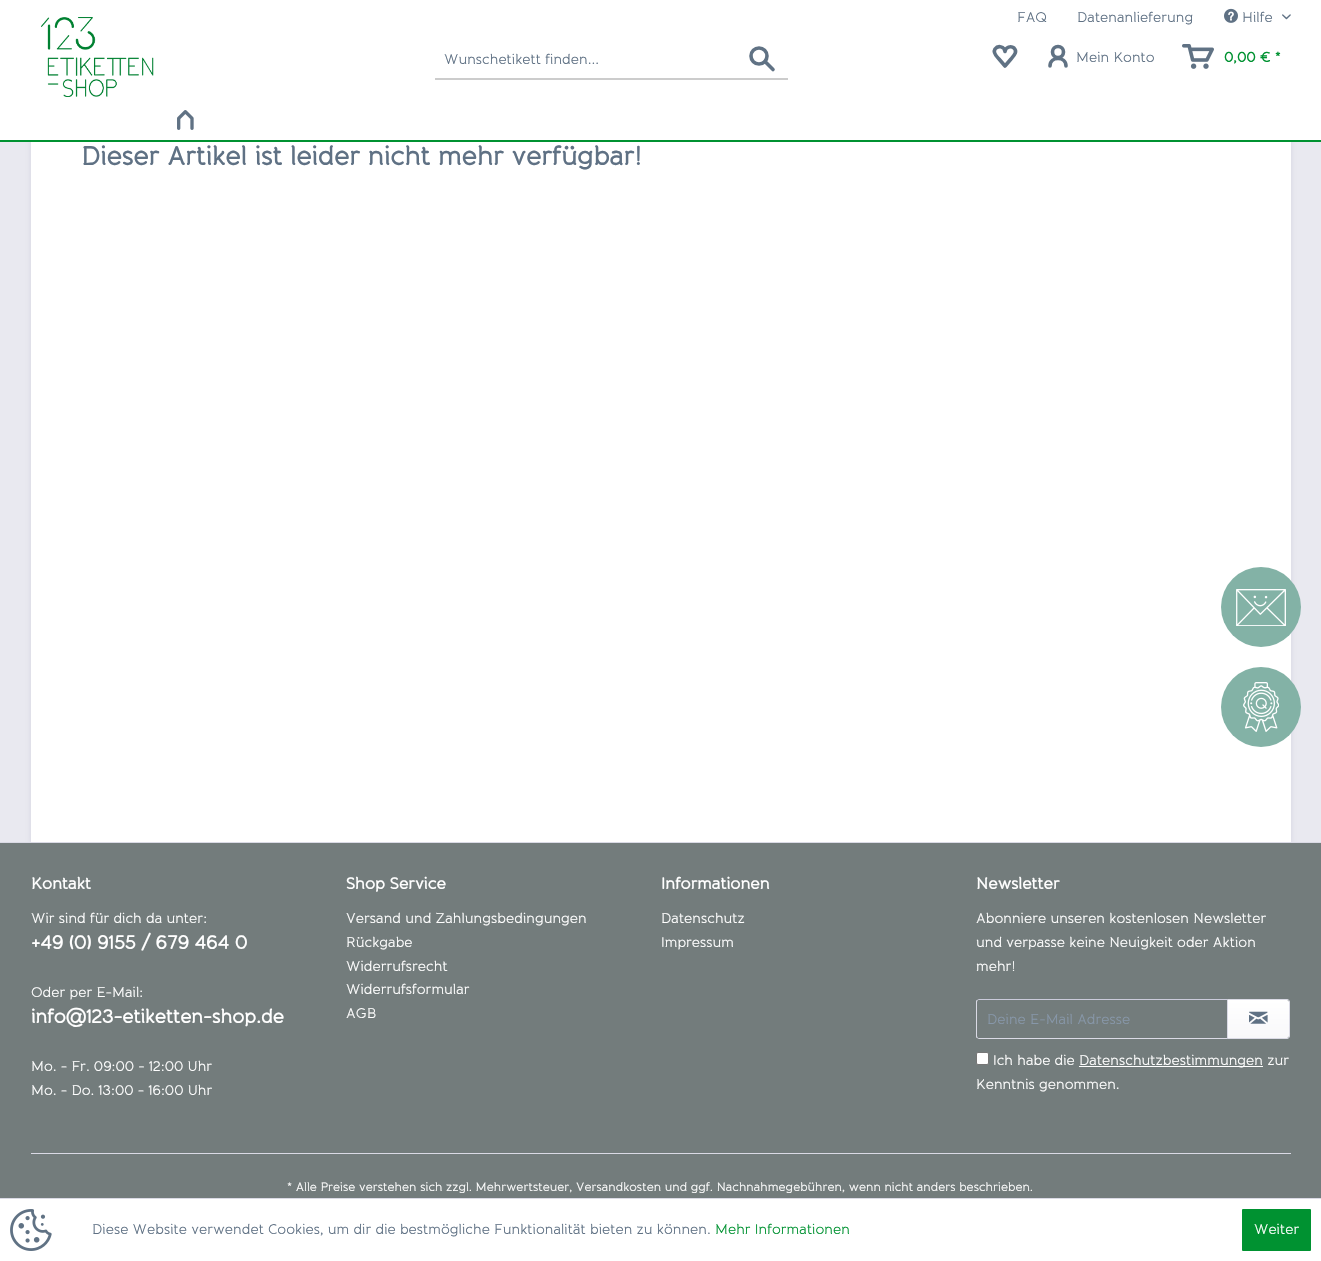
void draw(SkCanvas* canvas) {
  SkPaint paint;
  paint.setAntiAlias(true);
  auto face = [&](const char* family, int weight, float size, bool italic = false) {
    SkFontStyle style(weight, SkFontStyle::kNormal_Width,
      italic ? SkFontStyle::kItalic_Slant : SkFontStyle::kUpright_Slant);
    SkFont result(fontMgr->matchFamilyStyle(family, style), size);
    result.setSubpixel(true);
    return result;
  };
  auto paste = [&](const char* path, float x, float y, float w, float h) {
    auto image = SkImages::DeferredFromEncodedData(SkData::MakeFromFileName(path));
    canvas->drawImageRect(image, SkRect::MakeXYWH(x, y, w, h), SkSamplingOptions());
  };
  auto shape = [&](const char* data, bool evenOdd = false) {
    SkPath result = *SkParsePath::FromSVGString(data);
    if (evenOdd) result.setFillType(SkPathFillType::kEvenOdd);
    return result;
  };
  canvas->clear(0xffe9e9f0);
  paint.setColor(0xffffffff);
  canvas->drawRect(SkRect::MakeXYWH(0, 0, 1321, 98), paint);
  paste("img/1.png", 1224, 8, 14, 15);
  paste("img/2.png", 1282, 14, 9, 6);
  paste("img/3.png", 41, 17, 113, 80);
  paint.setColor(0xffcccccc);
  canvas->drawRect(SkRect::MakeXYWH(435, 78, 353, 2), paint);
  paint.setStroke(true);
  paint.setStrokeWidth(3.6f);
  paint.setColor(0xff607284);
  canvas->drawCircle(759, 56, 8, paint);
  paint.setStrokeCap(SkPaint::kRound_Cap);
  paint.setStrokeJoin(SkPaint::kRound_Join);
  canvas->drawPath(shape("M765 61.5L773 69.5"), paint);
  canvas->drawPath(shape("M1005 51.5C1004.5 46.5 998 45 995 49C992.5 53 996.5 56.5 999 59L1005 66L1011 59C1013.5 56 1018 52 1014 48C1011 45.5 1005.5 47 1005 51.5"), paint);
  paint.setStrokeCap(SkPaint::kButt_Cap);
  paint.setStrokeJoin(SkPaint::kMiter_Join);
  canvas->drawCircle(1058, 52, 5.5f, paint);
  paint.setStrokeCap(SkPaint::kRound_Cap);
  paint.setStrokeJoin(SkPaint::kRound_Join);
  canvas->drawPath(shape("M1066 66C1066 56 1050 56 1050 66"), paint);
  paste("img/4.png", 1182, 44, 32, 25);
  paint.setStroke(false);
  paint.setColor(0xffdadae5);
  paint.setMaskFilter(SkMaskFilter::MakeBlur(kNormal_SkBlurStyle, 2));
  canvas->drawRect(SkRect::MakeXYWH(30, 141, 1262, 702), paint);
  paint.setMaskFilter(nullptr);
  paint.setColor(0xffffffff);
  canvas->drawRect(SkRect::MakeXYWH(0, 98, 1321, 42), paint);
  paint.setColor(0xff009231);
  canvas->drawRect(SkRect::MakeXYWH(0, 140, 1321, 2), paint);
  paste("img/5.png", 177, 110, 17, 20);
  paint.setColor(0xffffffff);
  canvas->drawRect(SkRect::MakeXYWH(31, 142, 1260, 700), paint);
  paint.setColor(0xff83b2a6);
  canvas->drawCircle(1261, 607, 40, paint);
  paste("img/6.png", 1236, 589, 50, 37);
  canvas->drawCircle(1261, 707, 40, paint);
  paste("img/7.png", 1243, 682, 36, 50);
  {
    const struct { float x, y, w, h; SkColor color; } items[] = {
      {0, 843, 1321, 355, 0xff737c7c},
      {0, 842, 1321, 1, 0xffdadae5},
      {31, 1153, 1260, 1, 0xffdadae5},
    };
    for (auto [x, y, w, h, color] : items) {
      paint.setColor(color);
      canvas->drawRect(SkRect::MakeXYWH(x, y, w, h), paint);
    }
  }
  paint.setColor(0xffcbcbdb);
  canvas->drawPath(shape("M979 999L977 1000L978 1001V1000H1227L1228 999Z"), paint);
  paint.setColor(0xffdadae5);
  canvas->drawPath(shape("M1228 1039L1227 1038H978V1037L977 1038L979 1039Z"), paint);
  canvas->drawPath(shape("M976 1002V1036C976 1037 976 1038 977 1038L977.5 1037.5L977 1036V1002L977.5 1000.5L977 1000C976 1000 976 1001 976 1002Z"), paint);
  {
    const SkColor colors[] = {0xffffffff, 0xfff8f8fa};
    const float stops[] = {0, 1};
    const SkPoint ends[] = {{1259, 1000}, {1259, 1038}};
    paint.setShader(SkGradientShader::MakeLinear(ends, colors, stops, 2, SkTileMode::kClamp));
    paint.setAlpha(255);
  }
  canvas->drawPath(shape("M1228 1000H1287C1288 1000 1289 1001 1289 1002V1036C1289 1037 1288 1038 1287 1038H1228Z"), paint);
  paint.setStroke(true);
  paint.setStrokeWidth(1);
  paint.setStrokeCap(SkPaint::kButt_Cap);
  paint.setStrokeJoin(SkPaint::kMiter_Join);
  paint.setShader(nullptr);
  paint.setColor(0xffdadae5);
  canvas->drawPath(shape("M1227.5 999.5H1287C1288.5 999.5 1289.5 1000.5 1289.5 1002V1036C1289.5 1037.5 1288.5 1038.5 1287 1038.5H1227.5Z"), paint);
  paste("img/8.png", 1249, 1011, 19, 13);
  paint.setStroke(false);
  paint.setColor(0xffffffff);
  canvas->drawRoundRect(SkRect::MakeXYWH(976.5f, 1052.5f, 12, 12), 1.5f, 1.5f, paint);
  paint.setStroke(true);
  paint.setColor(0xff767676);
  canvas->drawRoundRect(SkRect::MakeXYWH(976.5f, 1052.5f, 12, 12), 1.5f, 1.5f, paint);
  paint.setStroke(false);
  {
    const struct { float x, y, w, h; SkColor color; } items[] = {
      {1079, 1066, 184, 1, 0xffffffff},
      {0, 1199, 1321, 62, 0xffffffff},
      {0, 1198, 1321, 1, 0xffdadae5},
    };
    for (auto [x, y, w, h, color] : items) {
      paint.setColor(color);
      canvas->drawRect(SkRect::MakeXYWH(x, y, w, h), paint);
    }
  }
  paste("img/9.png", 10, 1209, 42, 42);
  paint.setColor(0xff009231);
  canvas->drawRoundRect(SkRect::MakeXYWH(1242, 1209, 69, 42), 1, 1, paint);
  auto f0 = face("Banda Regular", 400, 14);
  paint.setColor(0xff5f7184);
  {
    const struct { const char* s; float x, y; } items[] = {
      {"FAQ", 1017, 22},
      {"Datenanlieferung", 1077, 22},
      {"Hilfe", 1242, 22},
      {"Wunschetikett finden...", 444, 64},
      {"Mein Konto", 1076, 62},
    };
    for (auto [s, x, y] : items) {
      canvas->drawString(s, x, y, f0, paint);
    }
  }
  auto f1 = face("Banda Regular", 700, 14);
  paint.setColor(0xff009231);
  canvas->drawString("0,00 € *", 1224, 62, f1, paint);
  auto f2 = face("Banda Regular", 700, 26);
  paint.setColor(0xff5f7184);
  canvas->drawString("Dieser Artikel ist leider nicht mehr verfügbar!", 81, 165, f2, paint);
  auto f3 = face("Banda Regular", 700, 16);
  paint.setColor(0xffffffff);
  canvas->drawString("Kontakt", 31, 889, f3, paint);
  canvas->drawString("Wir sind für dich da unter:", 31, 923, f0, paint);
  auto f4 = face("Banda Regular", 700, 19);
  canvas->drawString("+49 (0) 9155 / 679 464 0", 31, 949, f4, paint);
  canvas->drawString("Oder per E-Mail:", 31, 997, f0, paint);
  canvas->drawString("info@123-etiketten-shop.de", 31, 1023, f4, paint);
  canvas->drawString("Mo. - Fr. 09:00 - 12:00 Uhr", 31, 1071, f0, paint);
  canvas->drawString("Mo. - Do. 13:00 - 16:00 Uhr", 31, 1095, f0, paint);
  canvas->drawString("Shop Service", 346, 889, f3, paint);
  {
    const struct { const char* s; float x, y; } items[] = {
      {"Versand und Zahlungsbedingungen", 346, 923},
      {"Rückgabe", 346, 947},
      {"Widerrufsrecht", 346, 971},
      {"Widerrufsformular", 346, 994},
      {"AGB", 346, 1018},
    };
    for (auto [s, x, y] : items) {
      canvas->drawString(s, x, y, f0, paint);
    }
  }
  canvas->drawString("Informationen", 661, 889, f3, paint);
  canvas->drawString("Datenschutz", 661, 923, f0, paint);
  canvas->drawString("Impressum", 661, 947, f0, paint);
  canvas->drawString("Newsletter", 976, 889, f3, paint);
  {
    const struct { const char* s; float x, y; } items[] = {
      {"Abonniere unseren kostenlosen Newsletter", 976, 923},
      {"und verpasse keine Neuigkeit oder Aktion", 976, 947},
      {"mehr!", 976, 971},
    };
    for (auto [s, x, y] : items) {
      canvas->drawString(s, x, y, f0, paint);
    }
  }
  paint.setColor(0xff8797a9);
  canvas->drawString("Deine E-Mail Adresse", 987, 1024, f0, paint);
  paint.setColor(0xffffffff);
  {
    const struct { const char* s; float x, y; } items[] = {
      {"Ich habe die", 993, 1065},
      {"Datenschutzbestimmungen zur", 1079, 1065},
      {"Kenntnis genommen.", 976, 1089},
    };
    for (auto [s, x, y] : items) {
      canvas->drawString(s, x, y, f0, paint);
    }
  }
  auto f5 = face("Banda Regular", 400, 12);
  canvas->drawString("* Alle Preise verstehen sich zzgl. Mehrwertsteuer, Versandkosten und ggf. Nachnahmegebühren, wenn nicht anders beschrieben.", 287, 1191, f5, paint);
  paint.setColor(0xff5f7184);
  canvas->drawString("Diese Website verwendet Cookies, um dir die bestmögliche Funktionalität bieten zu können.", 92, 1234, f0, paint);
  paint.setColor(0xff009231);
  canvas->drawString("Mehr Informationen", 715, 1234, f0, paint);
  paint.setColor(0xffffffff);
  canvas->drawString("Weiter", 1254, 1234, f0, paint);
}
